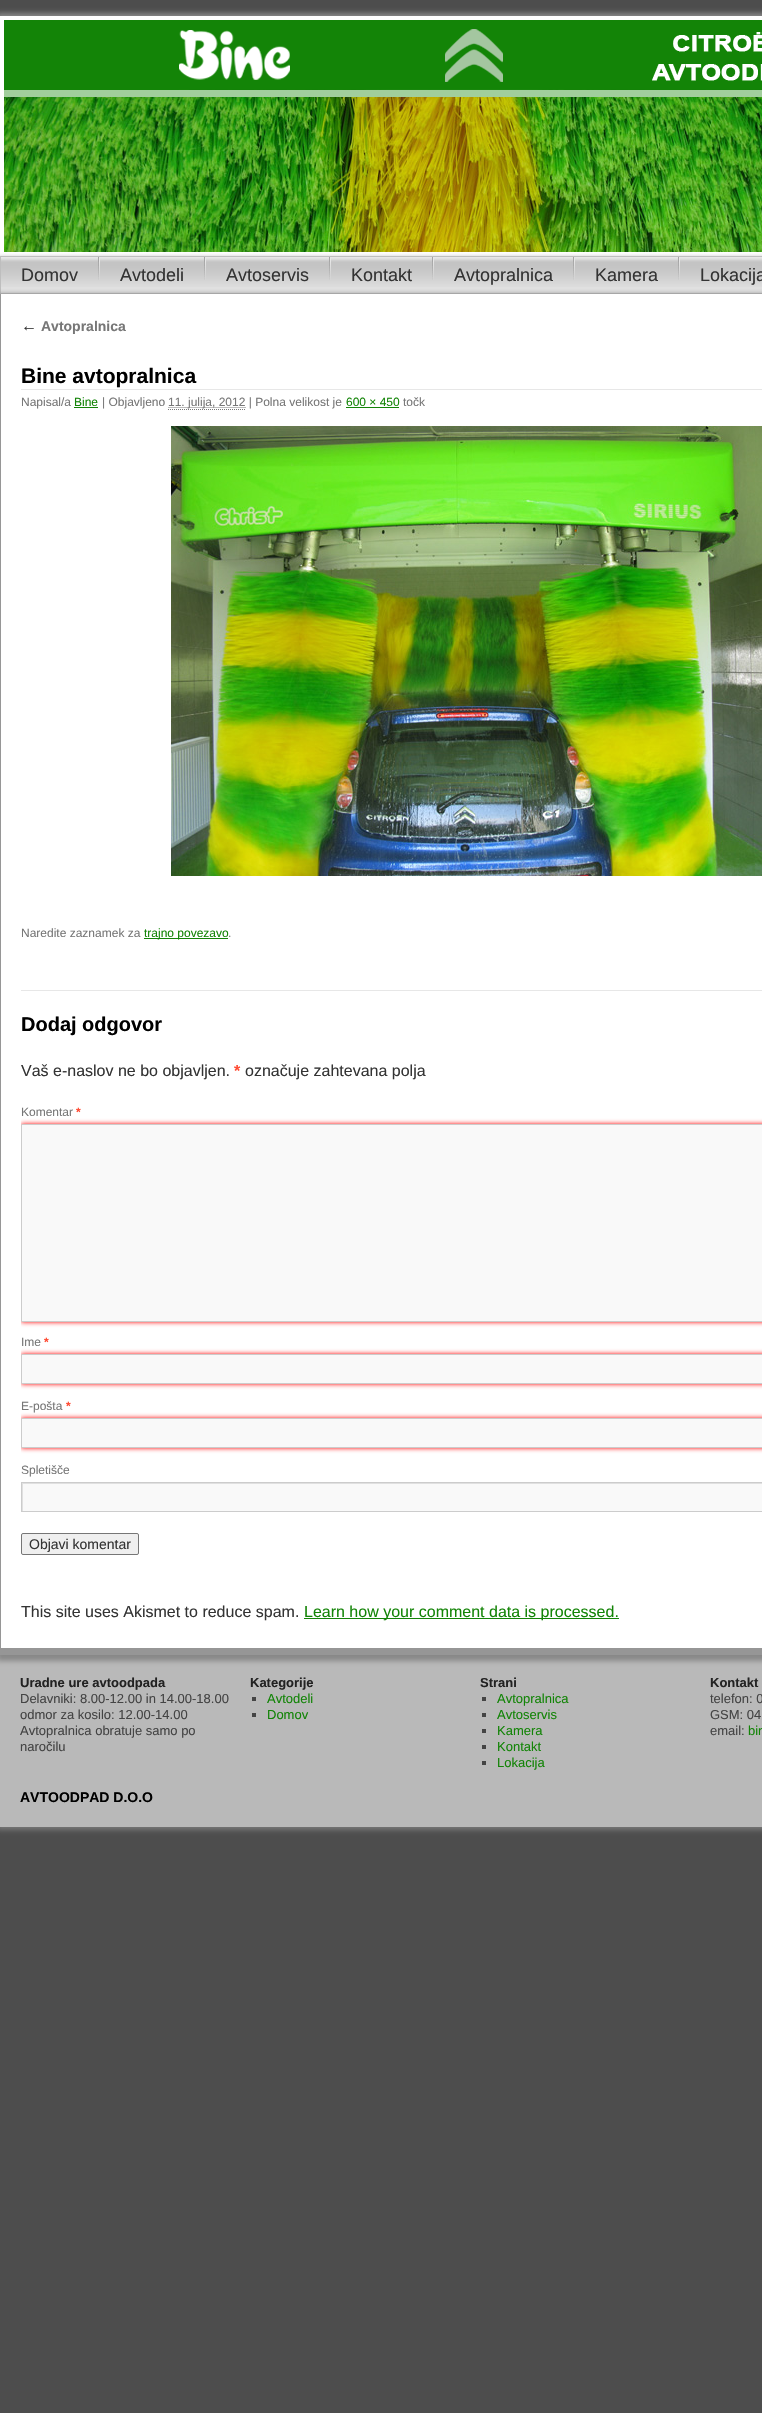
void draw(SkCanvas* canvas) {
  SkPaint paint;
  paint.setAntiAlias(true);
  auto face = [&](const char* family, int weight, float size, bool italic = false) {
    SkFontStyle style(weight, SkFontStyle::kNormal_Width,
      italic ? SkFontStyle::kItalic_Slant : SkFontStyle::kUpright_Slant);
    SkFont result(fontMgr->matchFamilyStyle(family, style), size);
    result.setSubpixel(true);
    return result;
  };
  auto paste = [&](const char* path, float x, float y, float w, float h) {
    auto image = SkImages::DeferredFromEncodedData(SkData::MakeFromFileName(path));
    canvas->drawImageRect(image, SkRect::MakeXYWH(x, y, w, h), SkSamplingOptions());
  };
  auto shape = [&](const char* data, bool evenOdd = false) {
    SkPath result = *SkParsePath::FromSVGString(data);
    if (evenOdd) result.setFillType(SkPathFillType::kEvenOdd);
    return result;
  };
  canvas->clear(0xff4d4d4d);
  paste("img/1.png", 0, 0, 762, 16);
  paint.setColor(0xff888888);
  paint.setMaskFilter(SkMaskFilter::MakeBlur(kNormal_SkBlurStyle, 2.5f));
  canvas->drawRect(SkRect::MakeXYWH(-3, 13, 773, 246), paint);
  paint.setMaskFilter(nullptr);
  paste("img/2.png", 4, 97, 758, 155);
  paint.setStroke(true);
  paint.setStrokeWidth(4);
  paint.setColor(0xffffffff);
  canvas->drawRect(SkRect::MakeXYWH(2, 18, 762, 236), paint);
  paint.setStroke(false);
  paint.setColor(0xff138407);
  canvas->drawRect(SkRect::MakeXYWH(4, 20, 758, 70), paint);
  paste("img/3.png", 179, 29, 583, 61);
  paint.setColor(0xffa1ce9c);
  canvas->drawRect(SkRect::MakeXYWH(4, 90, 758, 7), paint);
  paint.setColor(0xff888888);
  paint.setMaskFilter(SkMaskFilter::MakeBlur(kNormal_SkBlurStyle, 2.5f));
  canvas->drawRect(SkRect::MakeXYWH(-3, 258, 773, 44), paint);
  paint.setMaskFilter(nullptr);
  paint.setColor(0xffe1e1e1);
  canvas->drawRect(SkRect::MakeXYWH(1, 287, 761, 6), paint);
  paste("img/4.png", 1, 257, 761, 30);
  paint.setStroke(true);
  paint.setStrokeWidth(1);
  paint.setColor(0xffbebebe);
  canvas->drawRect(SkRect::MakeXYWH(0.5f, 256.5f, 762, 37), paint);
  paste("img/5.png", 98, 257, 2, 23);
  paste("img/5.png", 204, 257, 2, 23);
  paste("img/5.png", 329, 257, 2, 23);
  paste("img/5.png", 432, 257, 2, 23);
  paste("img/5.png", 573, 257, 2, 23);
  paste("img/5.png", 678, 257, 2, 23);
  paint.setStroke(false);
  paint.setColor(0xff777777);
  paint.setMaskFilter(SkMaskFilter::MakeBlur(kNormal_SkBlurStyle, 2.5f));
  canvas->drawRect(SkRect::MakeXYWH(-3, 1652, 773, 178), paint);
  paint.setMaskFilter(nullptr);
  paint.setColor(0xffb9b9b9);
  canvas->drawRect(SkRect::MakeXYWH(0, 1655, 762, 172), paint);
  paint.setColor(0xff888888);
  paint.setMaskFilter(SkMaskFilter::MakeBlur(kNormal_SkBlurStyle, 2.5f));
  canvas->drawRect(SkRect::MakeXYWH(-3, 294, 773, 1367), paint);
  paint.setMaskFilter(nullptr);
  {
    const struct { float x, y, w, h; SkColor color; } items[] = {
      {1, 294, 761, 1354, 0xffffffff},
      {0, 1648, 762, 7, 0xff969696},
      {0, 294, 1, 1361, 0xff969696},
      {21, 389, 741, 1, 0xffe7e7e7},
      {74, 407, 24, 1, 0xff138407},
    };
    for (auto [x, y, w, h, color] : items) {
      paint.setColor(color);
      canvas->drawRect(SkRect::MakeXYWH(x, y, w, h), paint);
    }
  }
  paint.setStroke(true);
  paint.setColor(0xff777777);
  paint.setPathEffect(SkDashPathEffect::Make({{1, 1}}, 0));
  canvas->drawPath(shape("M168 409.5H246"), paint);
  paint.setPathEffect(nullptr);
  paint.setPathEffect(SkDashPathEffect::Make({{1, 1}}, 0));
  canvas->drawPath(shape("M168.5 407.5H245.5"), paint);
  paint.setPathEffect(nullptr);
  paint.setStroke(false);
  paint.setColor(0xff138407);
  canvas->drawRect(SkRect::MakeXYWH(346, 407, 53, 1), paint);
  paste("img/6.png", 171, 426, 591, 450);
  canvas->drawRect(SkRect::MakeXYWH(144, 938, 84, 1), paint);
  paint.setColor(0xffe7e7e7);
  canvas->drawRect(SkRect::MakeXYWH(21, 990, 741, 1), paint);
  canvas->save();
  canvas->clipRect(SkRect::MakeXYWH(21, 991, 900, 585));
  paint.setColor(0xffff0000);
  paint.setMaskFilter(SkMaskFilter::MakeBlur(kNormal_SkBlurStyle, 2.5f));
  canvas->drawRoundRect(SkRect::MakeXYWH(21, 1124, 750, 198), 1, 1, paint);
  paint.setMaskFilter(nullptr);
  canvas->restore();
  paint.setColor(0xfff9f9f9);
  canvas->drawRoundRect(SkRect::MakeXYWH(21.5f, 1124.5f, 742, 197), 0.5f, 0.5f, paint);
  paint.setStroke(true);
  paint.setColor(0xffcccccc);
  canvas->drawRoundRect(SkRect::MakeXYWH(21.5f, 1124.5f, 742, 197), 0.5f, 0.5f, paint);
  canvas->save();
  canvas->clipRect(SkRect::MakeXYWH(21, 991, 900, 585));
  paint.setStroke(false);
  paint.setColor(0xffff0000);
  paint.setMaskFilter(SkMaskFilter::MakeBlur(kNormal_SkBlurStyle, 2.5f));
  canvas->drawRoundRect(SkRect::MakeXYWH(21, 1354, 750, 30), 1, 1, paint);
  paint.setMaskFilter(nullptr);
  canvas->restore();
  paint.setColor(0xfff9f9f9);
  canvas->drawRoundRect(SkRect::MakeXYWH(21.5f, 1354.5f, 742, 29), 0.5f, 0.5f, paint);
  paint.setStroke(true);
  paint.setColor(0xffcccccc);
  canvas->drawRoundRect(SkRect::MakeXYWH(21.5f, 1354.5f, 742, 29), 0.5f, 0.5f, paint);
  canvas->save();
  canvas->clipRect(SkRect::MakeXYWH(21, 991, 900, 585));
  paint.setStroke(false);
  paint.setColor(0xffff0000);
  paint.setMaskFilter(SkMaskFilter::MakeBlur(kNormal_SkBlurStyle, 2.5f));
  canvas->drawRoundRect(SkRect::MakeXYWH(21, 1418, 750, 30), 1, 1, paint);
  paint.setMaskFilter(nullptr);
  canvas->restore();
  paint.setColor(0xfff9f9f9);
  canvas->drawRoundRect(SkRect::MakeXYWH(21.5f, 1418.5f, 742, 29), 0.5f, 0.5f, paint);
  paint.setStroke(true);
  paint.setColor(0xffcccccc);
  canvas->drawRoundRect(SkRect::MakeXYWH(21.5f, 1418.5f, 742, 29), 0.5f, 0.5f, paint);
  paint.setStroke(false);
  paint.setColor(0xfff9f9f9);
  canvas->drawRect(SkRect::MakeXYWH(23, 1484, 739, 27), paint);
  canvas->save();
  canvas->clipRect(SkRect::MakeXYWH(22, 1483, 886, 28));
  paint.setColor(0xffe0e0e0);
  canvas->drawPath(shape("M-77 1384H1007V1610H-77ZM23 1484H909V1512H23Z", true), paint);
  canvas->restore();
  paint.setStroke(true);
  paint.setColor(0xffcccccc);
  canvas->drawRect(SkRect::MakeXYWH(21.5f, 1482.5f, 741, 29), paint);
  paint.setStroke(false);
  paint.setColor(0xffefefef);
  canvas->drawRoundRect(SkRect::MakeXYWH(21.5f, 1533.5f, 117, 21), 1.5f, 1.5f, paint);
  paint.setStroke(true);
  paint.setColor(0xff767676);
  canvas->drawRoundRect(SkRect::MakeXYWH(21.5f, 1533.5f, 117, 21), 1.5f, 1.5f, paint);
  paint.setStroke(false);
  {
    const struct { float x, y, w, h; SkColor color; } items[] = {
      {304, 1618, 315, 1, 0xff138407},
      {252, 1697, 4, 4, 0xff444444},
      {252, 1713, 4, 4, 0xff444444},
      {482, 1697, 4, 4, 0xff444444},
      {482, 1713, 4, 4, 0xff444444},
      {482, 1729, 4, 4, 0xff444444},
      {482, 1745, 4, 4, 0xff444444},
      {482, 1761, 4, 4, 0xff444444},
    };
    for (auto [x, y, w, h, color] : items) {
      paint.setColor(color);
      canvas->drawRect(SkRect::MakeXYWH(x, y, w, h), paint);
    }
  }
  auto f0 = face("Liberation Sans", 400, 18);
  paint.setColor(0xff343434);
  {
    const struct { const char* s; float x, y; } items[] = {
      {"Domov", 21, 281},
      {"Avtodeli", 120, 281},
      {"Avtoservis", 226, 281},
      {"Kontakt", 351, 281},
      {"Avtopralnica", 454, 281},
      {"Kamera", 595, 281},
      {"Lokacija", 700, 281},
    };
    for (auto [s, x, y] : items) {
      canvas->drawString(s, x, y, f0, paint);
    }
  }
  auto f1 = face("Liberation Serif", 400, 16, true);
  canvas->drawString("←", 21, 331, f1, paint);
  auto f2 = face("Liberation Sans", 700, 14);
  paint.setColor(0xff777777);
  canvas->drawString("Avtopralnica", 41, 331, f2, paint);
  auto f3 = face("Liberation Sans", 700, 21);
  paint.setColor(0xff000000);
  canvas->drawString("Bine avtopralnica", 21, 383, f3, paint);
  auto f4 = face("Liberation Sans", 400, 12);
  paint.setColor(0xff777777);
  canvas->drawString("Napisal/a", 21, 406, f4, paint);
  paint.setColor(0xff138407);
  canvas->drawString("Bine", 74, 406, f4, paint);
  paint.setColor(0xff777777);
  canvas->drawString("| Objavljeno", 102, 406, f4, paint);
  canvas->drawString("11. julija, 2012 | Polna velikost je", 168, 406, f4, paint);
  paint.setColor(0xff138407);
  canvas->drawString("600 × 450", 346, 406, f4, paint);
  paint.setColor(0xff777777);
  canvas->drawString("točk", 403, 406, f4, paint);
  canvas->drawString("Naredite zaznamek za", 21, 937, f4, paint);
  paint.setColor(0xff138407);
  canvas->drawString("trajno povezavo", 144, 937, f4, paint);
  paint.setColor(0xff777777);
  canvas->drawString(".", 228, 937, f4, paint);
  auto f5 = face("Liberation Sans", 700, 20);
  paint.setColor(0xff000000);
  canvas->drawString("Dodaj odgovor", 21, 1031, f5, paint);
  auto f6 = face("Liberation Sans", 400, 16);
  paint.setColor(0xff343434);
  canvas->drawString("Vaš e-naslov ne bo objavljen.", 21, 1076, f6, paint);
  auto f7 = face("Liberation Sans", 700, 16);
  paint.setColor(0xffff4b33);
  canvas->drawString("*", 234, 1076, f7, paint);
  paint.setColor(0xff343434);
  canvas->drawString("označuje zahtevana polja", 245, 1076, f6, paint);
  paint.setColor(0xff777777);
  canvas->drawString("Komentar", 21, 1116, f4, paint);
  auto f8 = face("Liberation Sans", 700, 12);
  paint.setColor(0xffff4b33);
  canvas->drawString("*", 76, 1116, f8, paint);
  paint.setColor(0xff777777);
  canvas->drawString("Ime", 21, 1346, f4, paint);
  paint.setColor(0xffff4b33);
  canvas->drawString("*", 44, 1346, f8, paint);
  paint.setColor(0xff777777);
  canvas->drawString("E-pošta", 21, 1410, f4, paint);
  paint.setColor(0xffff4b33);
  canvas->drawString("*", 66, 1410, f8, paint);
  paint.setColor(0xff777777);
  canvas->drawString("Spletišče", 21, 1474, f4, paint);
  auto f9 = face("Liberation Sans", 400, 14);
  paint.setColor(0xff343434);
  canvas->drawString("Objavi komentar", 29, 1549, f9, paint);
  canvas->drawString("This site uses Akismet to reduce spam.", 21, 1617, f6, paint);
  paint.setColor(0xff138407);
  canvas->drawString("Learn how your comment data is processed.", 304, 1617, f6, paint);
  auto f10 = face("Liberation Sans", 700, 13);
  paint.setColor(0xff222222);
  canvas->drawString("Uradne ure avtoodpada", 20, 1687, f10, paint);
  auto f11 = face("Liberation Sans", 400, 13);
  paint.setColor(0xff444444);
  {
    const struct { const char* s; float x, y; } items[] = {
      {"Delavniki: 8.00-12.00 in 14.00-18.00", 20, 1703},
      {"odmor za kosilo: 12.00-14.00", 20, 1719},
      {"Avtopralnica obratuje samo po", 20, 1735},
      {"naročilu", 20, 1751},
    };
    for (auto [s, x, y] : items) {
      canvas->drawString(s, x, y, f11, paint);
    }
  }
  paint.setColor(0xff222222);
  canvas->drawString("Kategorije", 250, 1687, f10, paint);
  paint.setColor(0xff138407);
  canvas->drawString("Avtodeli", 267, 1703, f11, paint);
  canvas->drawString("Domov", 267, 1719, f11, paint);
  paint.setColor(0xff222222);
  canvas->drawString("Strani", 480, 1687, f10, paint);
  paint.setColor(0xff138407);
  {
    const struct { const char* s; float x, y; } items[] = {
      {"Avtopralnica", 497, 1703},
      {"Avtoservis", 497, 1719},
      {"Kamera", 497, 1735},
      {"Kontakt", 497, 1751},
      {"Lokacija", 497, 1767},
    };
    for (auto [s, x, y] : items) {
      canvas->drawString(s, x, y, f11, paint);
    }
  }
  paint.setColor(0xff222222);
  canvas->drawString("Kontakt", 710, 1687, f10, paint);
  paint.setColor(0xff444444);
  {
    const struct { const char* s; float x, y; } items[] = {
      {"telefon: 0", 710, 1703},
      {"GSM: 04", 710, 1719},
      {"email:", 710, 1735},
    };
    for (auto [s, x, y] : items) {
      canvas->drawString(s, x, y, f11, paint);
    }
  }
  paint.setColor(0xff138407);
  canvas->drawString("bin", 748, 1735, f11, paint);
  paint.setColor(0xff000000);
  canvas->drawString("AVTOODPAD D.O.O", 20, 1802, f2, paint);
}
